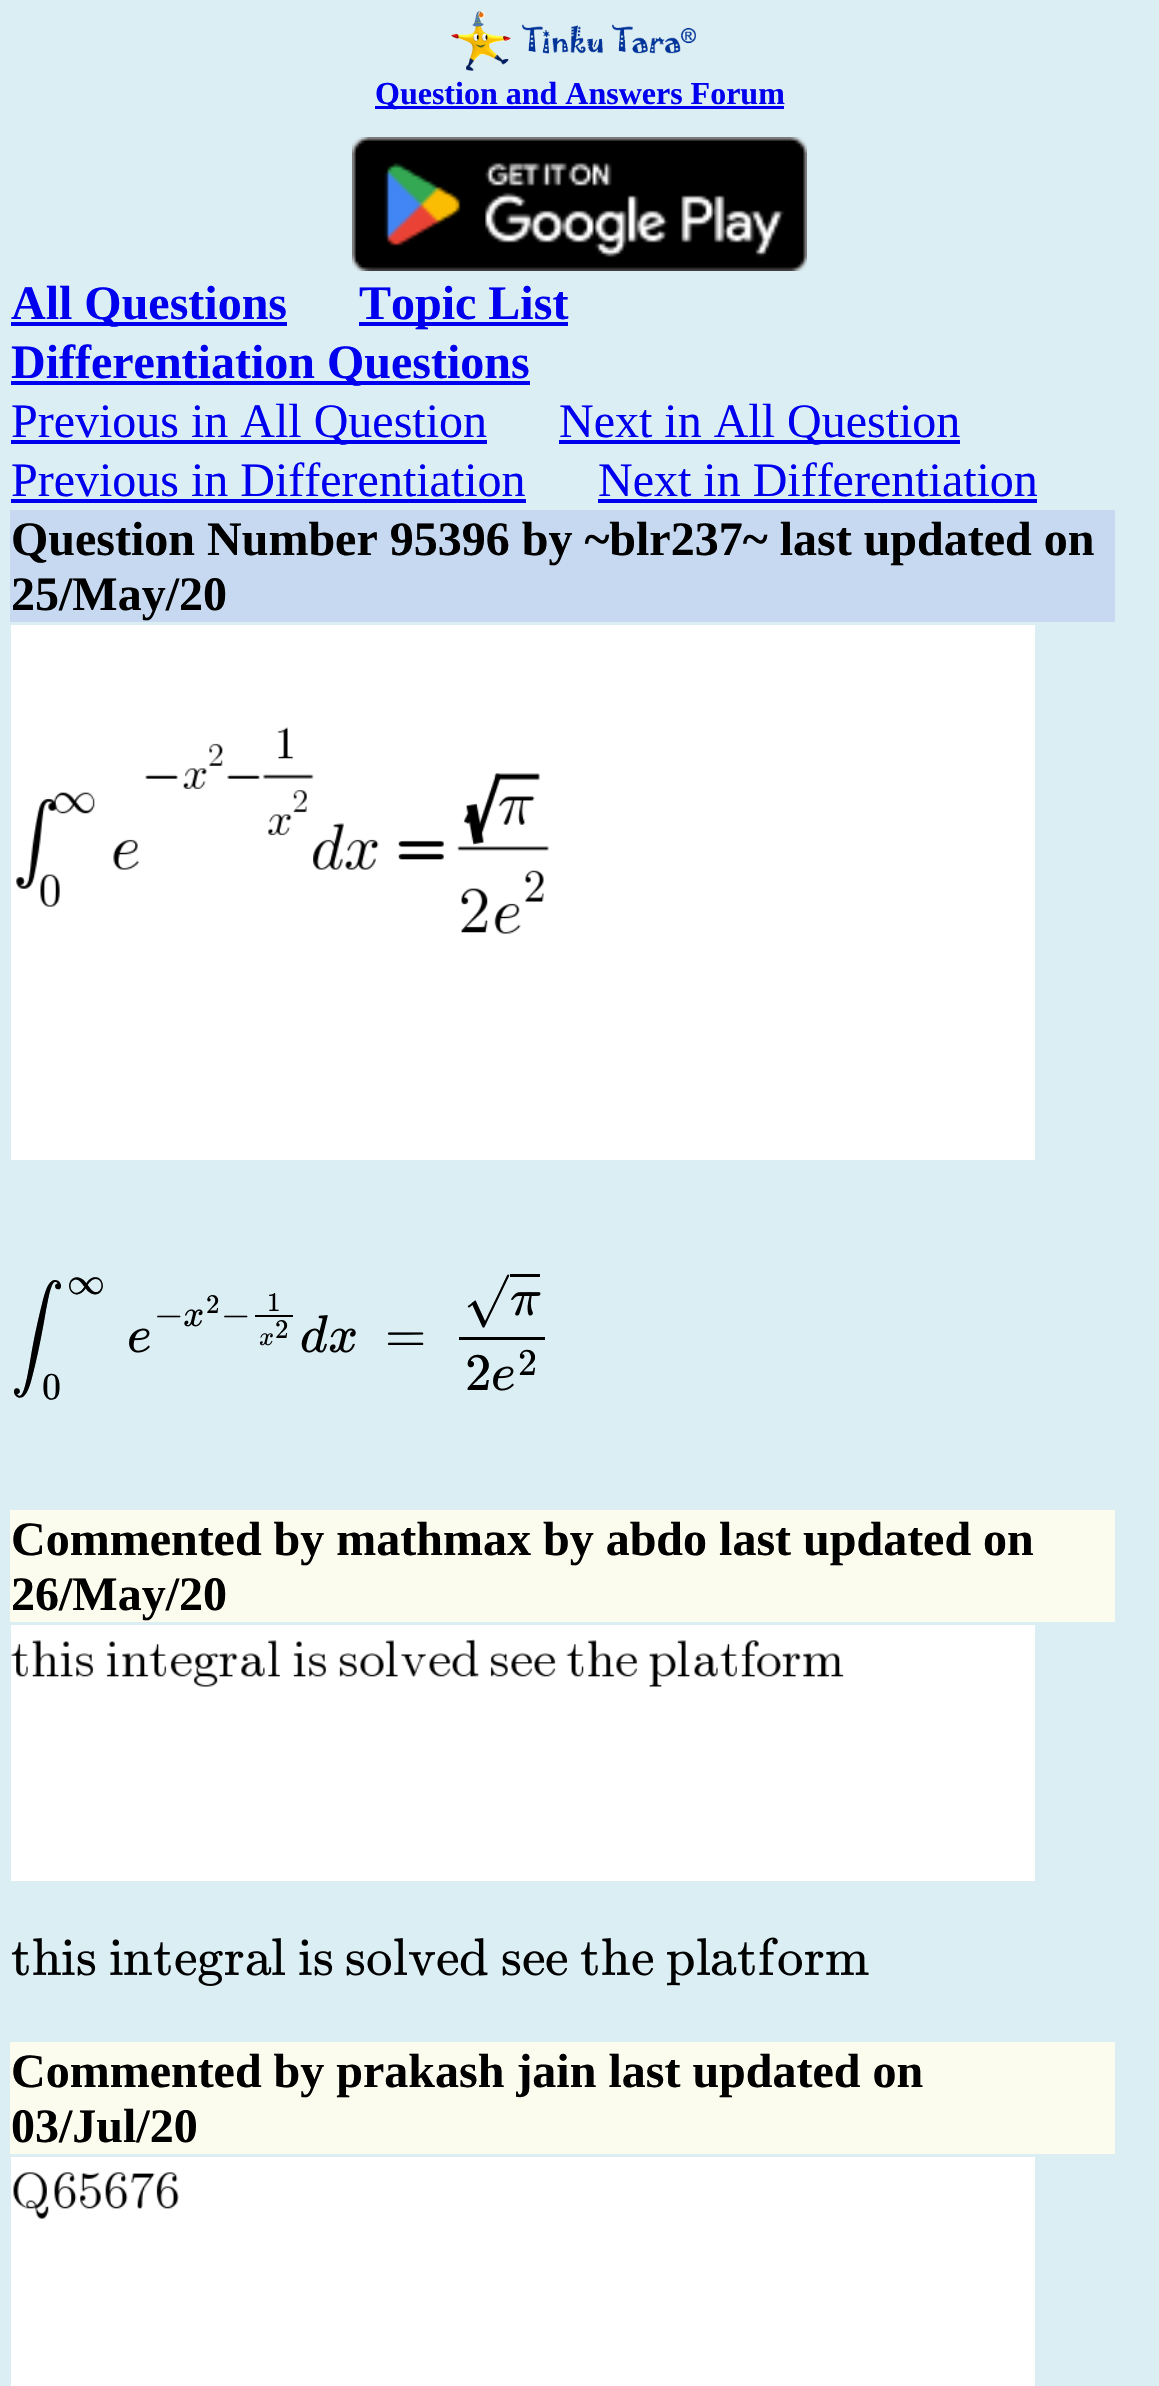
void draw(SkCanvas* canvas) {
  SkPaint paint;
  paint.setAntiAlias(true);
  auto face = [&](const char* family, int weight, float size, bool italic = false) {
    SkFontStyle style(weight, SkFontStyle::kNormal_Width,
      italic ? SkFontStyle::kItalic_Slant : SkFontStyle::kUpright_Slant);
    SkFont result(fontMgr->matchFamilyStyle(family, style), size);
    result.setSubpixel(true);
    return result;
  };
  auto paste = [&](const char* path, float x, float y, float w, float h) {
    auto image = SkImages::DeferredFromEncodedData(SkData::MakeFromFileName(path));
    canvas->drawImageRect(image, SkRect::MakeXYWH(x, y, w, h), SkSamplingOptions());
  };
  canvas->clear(0xffdbeef4);
  paste("img/1.png", 451, 11, 245, 60);
  paint.setColor(0xff0000ee);
  canvas->drawRect(SkRect::MakeXYWH(375, 106, 409, 3), paint);
  paste("img/2.png", 352, 137, 455, 134);
  {
    const struct { float x, y, w, h; SkColor color; } items[] = {
      {11, 322, 276, 4, 0xff0000ee},
      {359, 322, 209, 4, 0xff0000ee},
      {11, 381, 519, 4, 0xff0000ee},
      {11, 440, 476, 4, 0xff0000ee},
      {559, 440, 401, 4, 0xff0000ee},
      {11, 499, 515, 4, 0xff0000ee},
      {598, 499, 439, 4, 0xff0000ee},
      {10, 510, 1105, 112, 0xffc6d9f1},
    };
    for (auto [x, y, w, h, color] : items) {
      paint.setColor(color);
      canvas->drawRect(SkRect::MakeXYWH(x, y, w, h), paint);
    }
  }
  paste("img/3.png", 11, 625, 1024, 535);
  paste("img/4.png", 184, 1309, 19, 18);
  paint.setColor(0xff000000);
  canvas->drawRect(SkRect::MakeXYWH(255, 1315, 38, 2), paint);
  paste("img/5.png", 259, 1333, 14, 13);
  paste("img/6.png", 129, 1328, 21, 25);
  paste("img/7.png", 301, 1315, 27, 38);
  paste("img/8.png", 329, 1328, 27, 25);
  canvas->drawRect(SkRect::MakeXYWH(510, 1274, 30, 3), paint);
  paste("img/9.png", 511, 1292, 30, 24);
  canvas->drawRect(SkRect::MakeXYWH(459, 1337, 86, 3), paint);
  paste("img/6.png", 493, 1366, 21, 25);
  paint.setColor(0xfffcfcee);
  canvas->drawRect(SkRect::MakeXYWH(10, 1510, 1105, 112), paint);
  paste("img/10.png", 11, 1625, 1024, 256);
  paste("img/11.png", 11, 1942, 18, 34);
  paste("img/12.png", 33, 1938, 28, 37);
  paste("img/13.png", 62, 1939, 13, 36);
  paste("img/14.png", 77, 1951, 19, 25);
  paste("img/13.png", 110, 1939, 13, 36);
  paste("img/15.png", 124, 1951, 28, 24);
  paste("img/11.png", 153, 1942, 18, 34);
  paste("img/16.png", 175, 1951, 22, 25);
  paste("img/17.png", 198, 1950, 25, 36);
  paste("img/18.png", 225, 1951, 19, 24);
  paste("img/19.png", 246, 1951, 26, 25);
  paste("img/20.png", 272, 1938, 13, 37);
  paste("img/13.png", 299, 1939, 13, 36);
  paste("img/14.png", 314, 1951, 19, 25);
  paste("img/14.png", 346, 1951, 19, 25);
  paste("img/21.png", 367, 1951, 24, 25);
  paste("img/20.png", 394, 1938, 13, 37);
  paste("img/22.png", 409, 1952, 26, 24);
  paste("img/16.png", 437, 1951, 22, 25);
  paste("img/23.png", 460, 1938, 28, 38);
  paste("img/14.png", 502, 1951, 19, 25);
  paste("img/16.png", 523, 1951, 22, 25);
  paste("img/16.png", 546, 1951, 22, 25);
  paste("img/11.png", 580, 1942, 18, 34);
  paste("img/12.png", 602, 1938, 28, 37);
  paste("img/16.png", 632, 1951, 22, 25);
  paste("img/24.png", 667, 1951, 27, 35);
  paste("img/20.png", 697, 1938, 13, 37);
  paste("img/19.png", 711, 1951, 26, 25);
  paste("img/11.png", 737, 1942, 18, 34);
  paste("img/25.png", 759, 1937, 19, 38);
  paste("img/21.png", 778, 1951, 24, 25);
  paste("img/18.png", 805, 1951, 19, 24);
  paste("img/26.png", 826, 1951, 43, 24);
  canvas->drawRect(SkRect::MakeXYWH(10, 2042, 1105, 112), paint);
  paste("img/27.png", 11, 2157, 1024, 229);
  auto f0 = face("Liberation Serif", 700, 32);
  paint.setColor(0xff0000ee);
  canvas->drawString("Question and Answers Forum", 375, 104, f0, paint);
  auto f1 = face("Liberation Serif", 700, 48);
  {
    const struct { const char* s; float x, y; } items[] = {
      {"All Questions", 11, 319},
      {"Topic List", 359, 319},
      {"Differentiation Questions", 11, 378},
    };
    for (auto [s, x, y] : items) {
      canvas->drawString(s, x, y, f1, paint);
    }
  }
  auto f2 = face("Liberation Serif", 400, 48);
  {
    const struct { const char* s; float x, y; } items[] = {
      {"Previous in All Question", 11, 437},
      {"Next in All Question", 559, 437},
      {"Previous in Differentiation", 11, 496},
      {"Next in Differentiation", 598, 496},
    };
    for (auto [s, x, y] : items) {
      canvas->drawString(s, x, y, f2, paint);
    }
  }
  paint.setColor(0xff000000);
  canvas->drawString("Question Number 95396 by ~blr237~ last updated on", 11, 555, f1, paint);
  canvas->drawString("25/May/20", 11, 610, f1, paint);
  auto f3 = face("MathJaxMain", 400, 38);
  canvas->drawString("∞", 67, 1294, f3, paint);
  canvas->drawString("0", 42, 1399, f3, paint);
  auto f4 = face("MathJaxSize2", 400, 53);
  canvas->drawString("∫", 11, 1352, f4, paint);
  auto f5 = face("MathJaxMain", 400, 27);
  {
    const struct { const char* s; float x, y; } items[] = {
      {"2", 206, 1313},
      {"1", 267, 1311},
      {"2", 275, 1338},
    };
    for (auto [s, x, y] : items) {
      canvas->drawString(s, x, y, f5, paint);
    }
  }
  canvas->drawString("−", 154, 1326, f3, paint);
  canvas->drawString("−", 221, 1326, f3, paint);
  auto f6 = face("MathJaxMain", 400, 53);
  {
    const struct { const char* s; float x, y; } items[] = {
      {"=", 385, 1352},
      {"√", 464, 1317},
      {"2", 465, 1390},
    };
    for (auto [s, x, y] : items) {
      canvas->drawString(s, x, y, f6, paint);
    }
  }
  canvas->drawString("2", 518, 1375, f3, paint);
  {
    const struct { const char* s; float x, y; } items[] = {
      {"Commented by mathmax by abdo last updated on", 11, 1555},
      {"26/May/20", 11, 1610},
      {"Commented by prakash jain last updated on", 11, 2087},
      {"03/Jul/20", 11, 2142},
    };
    for (auto [s, x, y] : items) {
      canvas->drawString(s, x, y, f1, paint);
    }
  }
}
